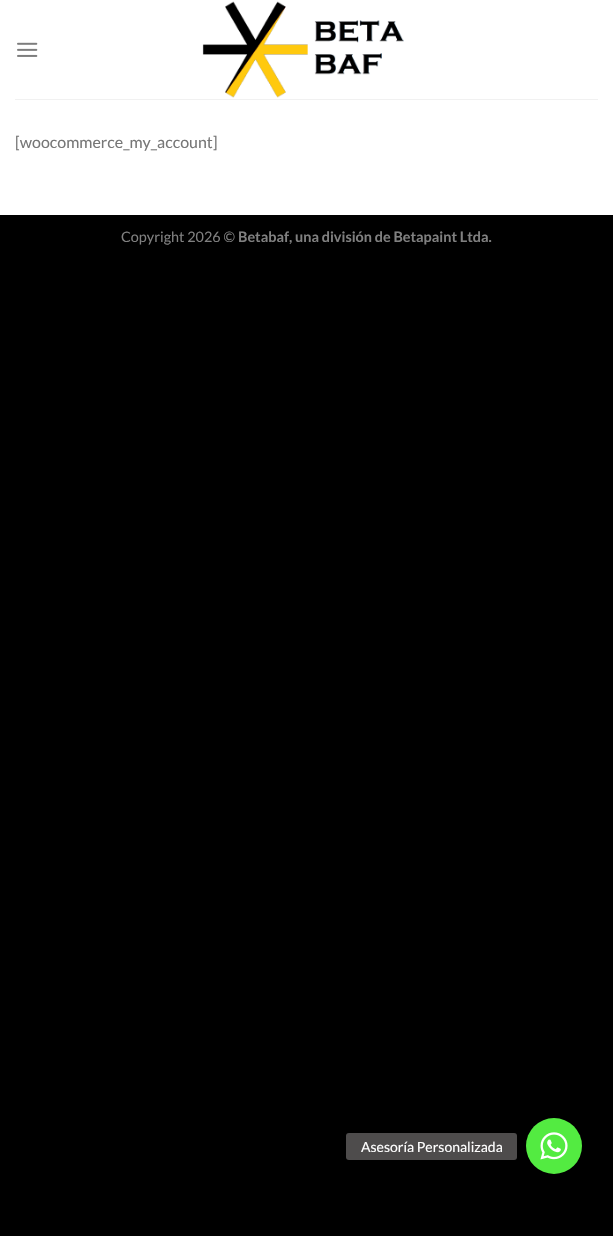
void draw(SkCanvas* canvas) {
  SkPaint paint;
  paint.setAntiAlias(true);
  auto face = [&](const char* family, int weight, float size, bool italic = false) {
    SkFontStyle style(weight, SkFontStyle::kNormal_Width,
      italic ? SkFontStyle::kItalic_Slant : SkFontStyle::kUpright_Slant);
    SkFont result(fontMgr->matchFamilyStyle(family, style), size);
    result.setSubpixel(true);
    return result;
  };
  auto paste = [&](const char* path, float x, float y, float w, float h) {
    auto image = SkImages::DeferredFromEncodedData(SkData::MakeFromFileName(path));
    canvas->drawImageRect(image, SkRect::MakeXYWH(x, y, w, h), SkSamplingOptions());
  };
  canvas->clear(0xff000000);
  paint.setColor(0xffffffff);
  canvas->drawRect(SkRect::MakeXYWH(0, 0, 613, 215), paint);
  paste("img/1.png", 17, 42, 21, 15);
  paste("img/2.png", 202, 1, 202, 97);
  paint.setColor(0xfff1f1f1);
  canvas->drawRect(SkRect::MakeXYWH(15, 99, 583, 1), paint);
  paint.setColor(0xff53eb41);
  canvas->drawCircle(554, 1146, 28, paint);
  paint.setColor(0xff4e4c4c);
  canvas->drawRoundRect(SkRect::MakeXYWH(346, 1133, 171, 27), 3, 3, paint);
  paste("img/3.png", 540, 1132, 28, 28);
  auto f0 = face("Lato", 400, 16);
  paint.setColor(0xff777777);
  canvas->drawString("[woocommerce_my_account]", 15, 148, f0, paint);
  auto f1 = face("Lato", 400, 14.4f);
  paint.setColor(0xff808080);
  canvas->drawString("Copyright 2026 ©", 121, 242, f1, paint);
  auto f2 = face("Lato", 700, 14.4f);
  canvas->drawString("Betabaf, una división de Betapaint Ltda.", 238, 242, f2, paint);
  auto f3 = face("Lato", 400, 14);
  paint.setColor(0xffffffff);
  canvas->drawString("Asesoría Personalizada", 361, 1152, f3, paint);
}
